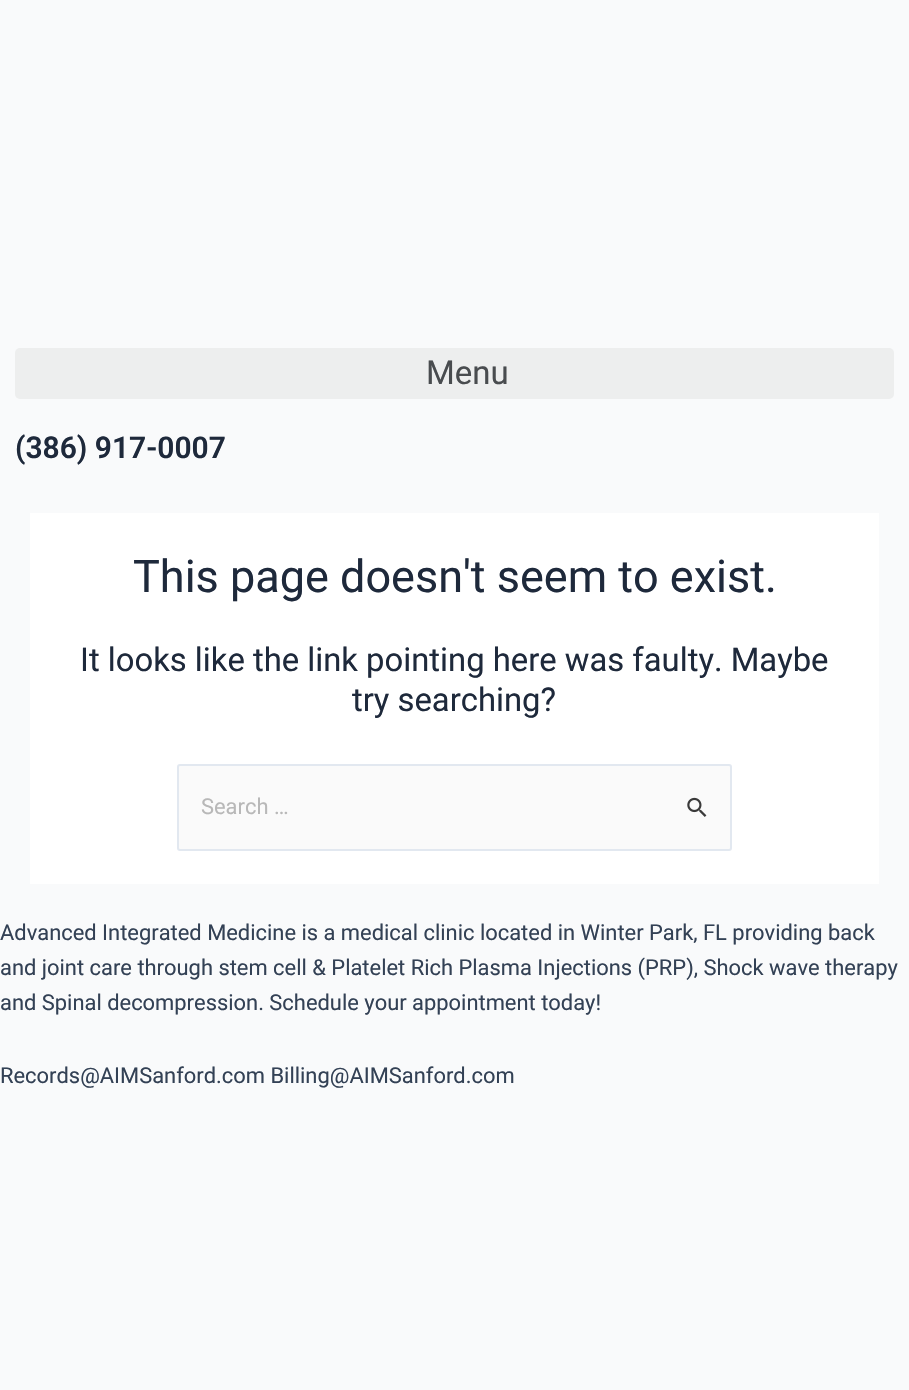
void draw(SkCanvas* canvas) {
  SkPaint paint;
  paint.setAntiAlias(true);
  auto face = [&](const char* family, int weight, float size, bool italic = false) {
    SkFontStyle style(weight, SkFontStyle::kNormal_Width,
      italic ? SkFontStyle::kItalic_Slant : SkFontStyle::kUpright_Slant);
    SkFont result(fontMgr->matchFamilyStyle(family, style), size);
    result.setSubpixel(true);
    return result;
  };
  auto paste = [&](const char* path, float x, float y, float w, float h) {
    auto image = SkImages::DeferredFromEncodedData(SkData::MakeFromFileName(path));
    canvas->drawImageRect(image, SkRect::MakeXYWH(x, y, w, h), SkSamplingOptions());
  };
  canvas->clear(0xfff9fafb);
  paint.setColor(0xffedeeee);
  canvas->drawRoundRect(SkRect::MakeXYWH(15, 348, 879, 51), 5, 5, paint);
  paint.setColor(0xffffffff);
  canvas->drawRect(SkRect::MakeXYWH(30, 513, 849, 371), paint);
  paint.setColor(0xfffafafa);
  canvas->drawRoundRect(SkRect::MakeXYWH(178, 765, 553, 85), 2, 2, paint);
  paint.setStroke(true);
  paint.setStrokeWidth(2);
  paint.setColor(0xffe2e8f0);
  canvas->drawRoundRect(SkRect::MakeXYWH(178, 765, 553, 85), 2, 2, paint);
  paste("img/1.png", 687, 797, 20, 20);
  auto f0 = face("Roboto", 400, 33);
  paint.setStroke(false);
  paint.setColor(0xff494c4f);
  canvas->drawString("Menu", 426, 384, f0, paint);
  auto f1 = face("Roboto", 600, 30);
  paint.setColor(0xff1e293b);
  canvas->drawString("(386) 917-0007", 15, 458, f1, paint);
  auto f2 = face("Roboto", 400, 45);
  canvas->drawString("This page doesn't seem to exist.", 133, 592, f2, paint);
  auto f3 = face("Roboto", 400, 32.8f);
  canvas->drawString("It looks like the link pointing here was faulty. Maybe", 80, 671, f3, paint);
  canvas->drawString("try searching?", 352, 711, f3, paint);
  auto f4 = face("Roboto", 400, 21.9f);
  paint.setColor(0xffb8b8b8);
  canvas->drawString("Search …", 201, 814, f4, paint);
  paint.setColor(0xff334155);
  {
    const struct { const char* s; float x, y; } items[] = {
      {"Advanced Integrated Medicine is a medical clinic located in Winter Park, FL providing back", 0, 940},
      {"and joint care through stem cell & Platelet Rich Plasma Injections (PRP), Shock wave therapy", 0, 975},
      {"and Spinal decompression. Schedule your appointment today!", 0, 1010},
      {"Records@AIMSanford.com Billing@AIMSanford.com", 0, 1083},
    };
    for (auto [s, x, y] : items) {
      canvas->drawString(s, x, y, f4, paint);
    }
  }
}
